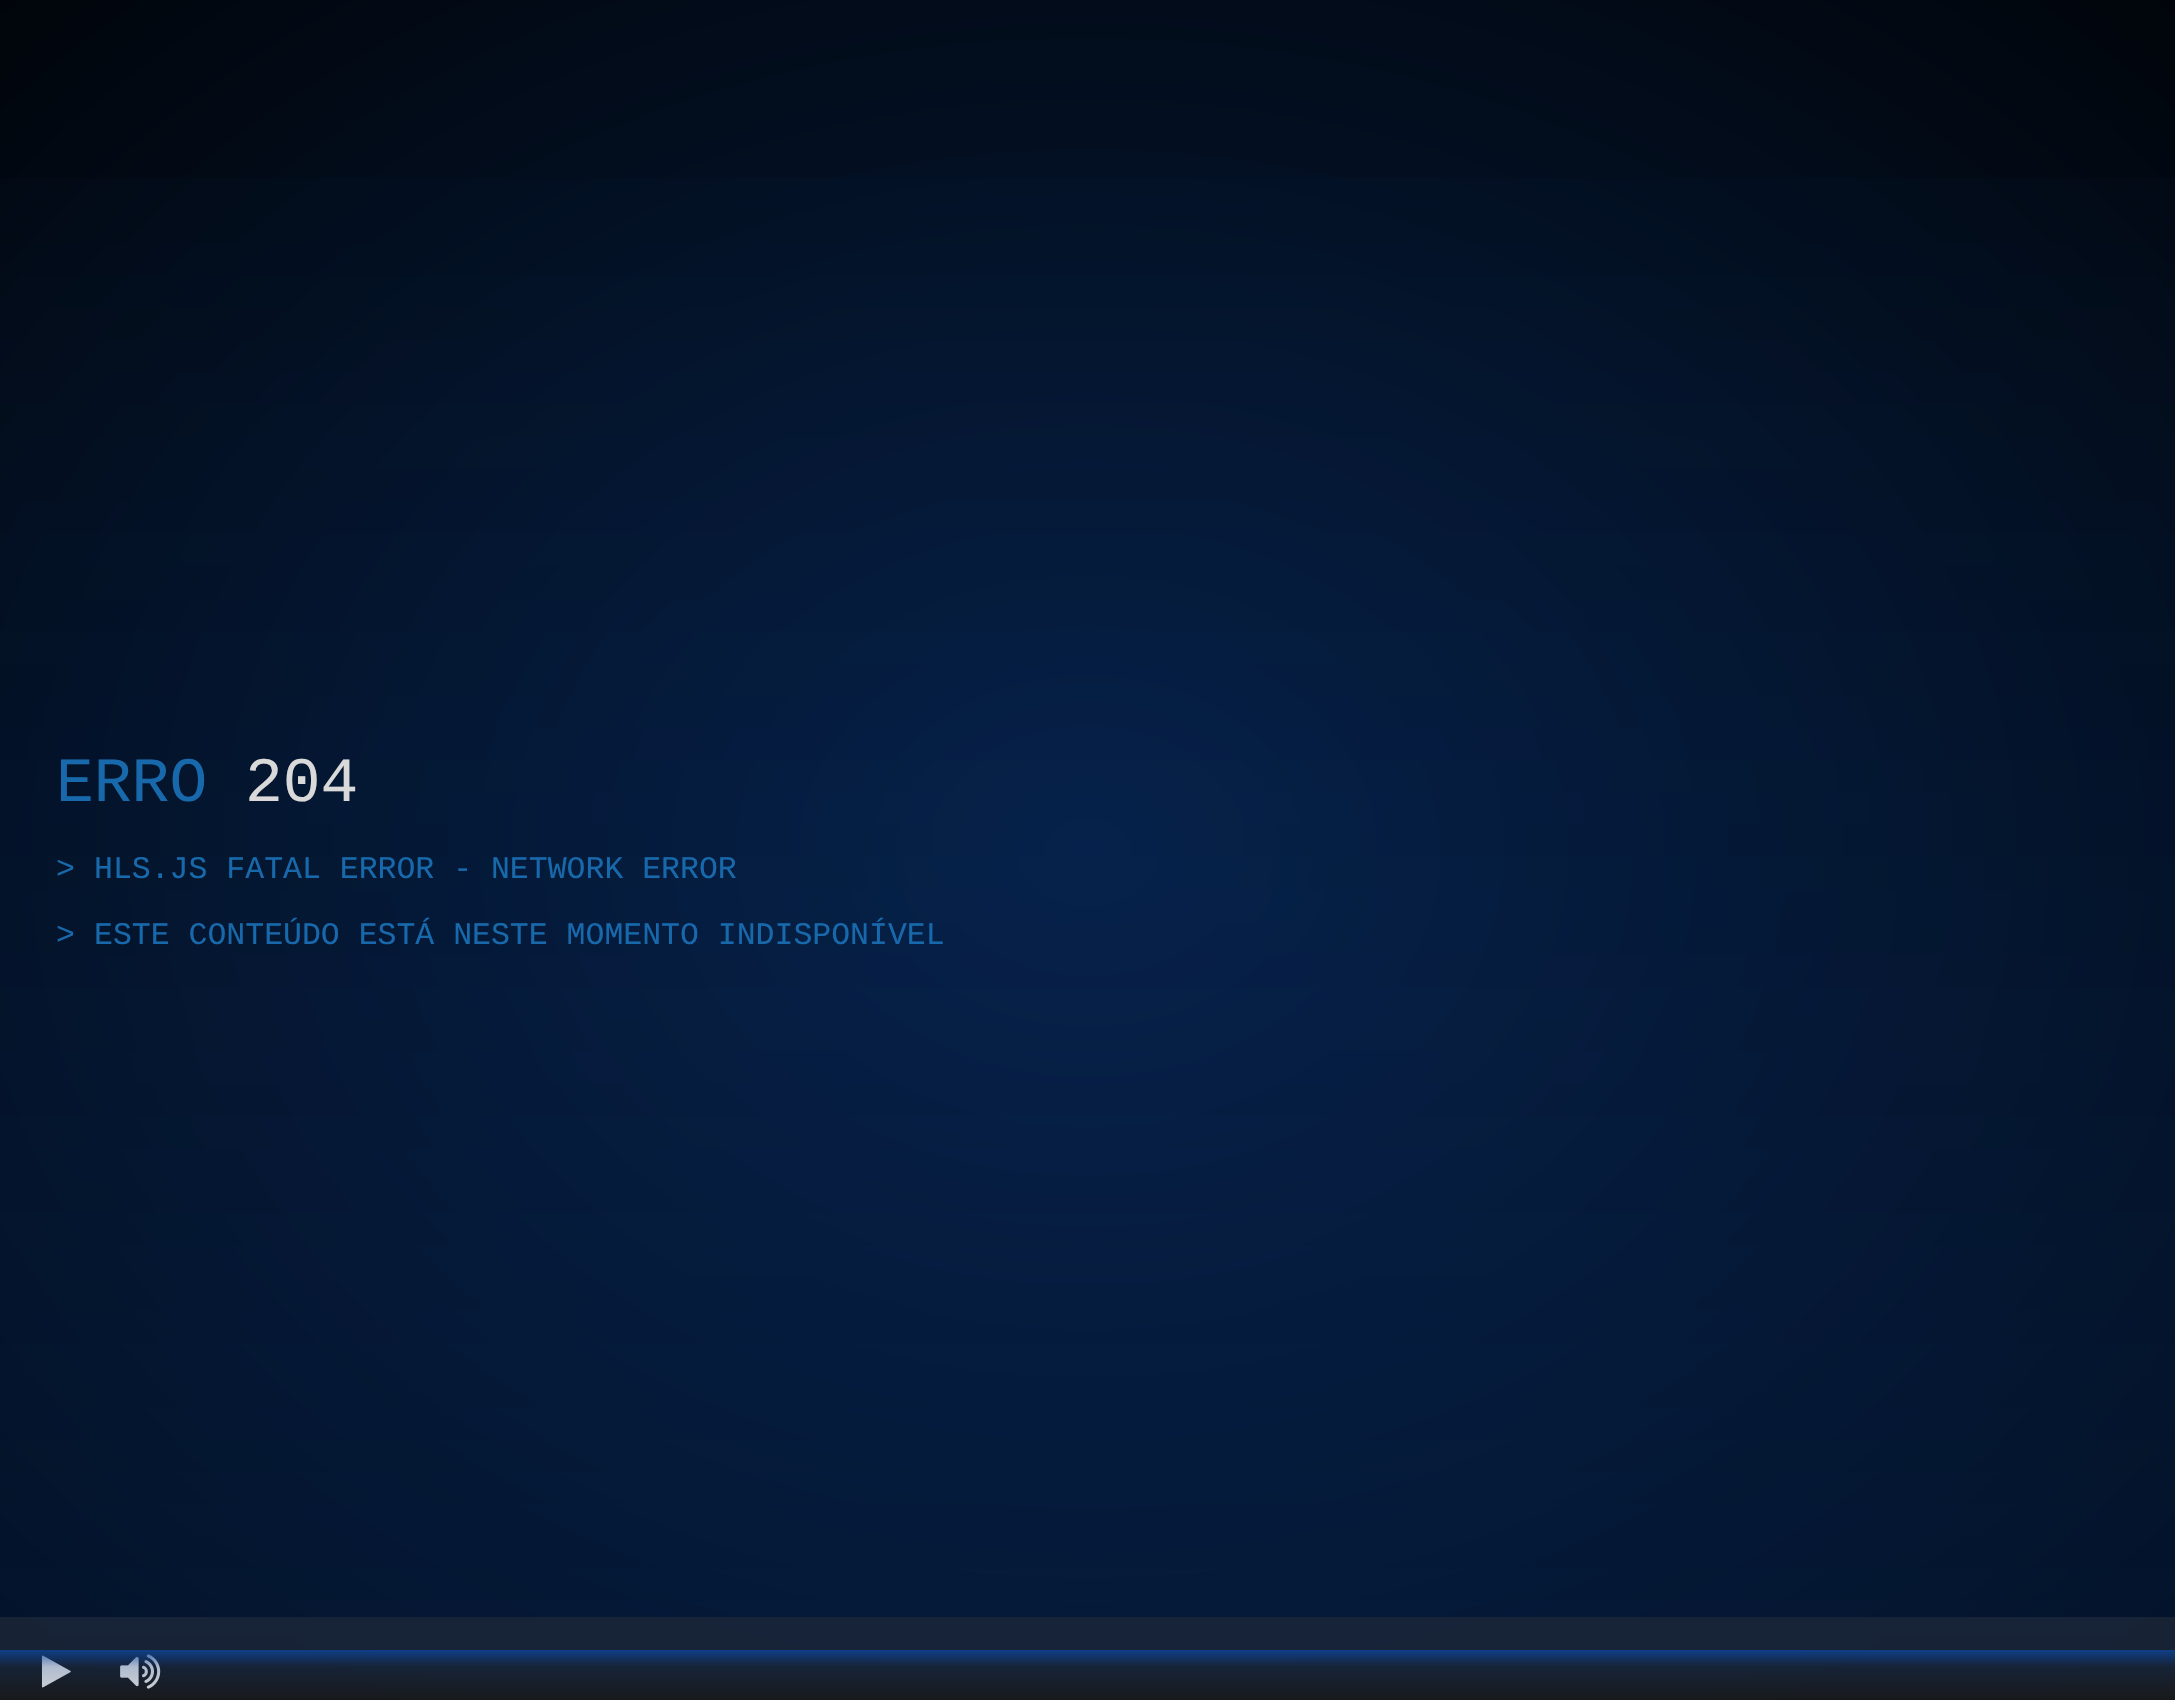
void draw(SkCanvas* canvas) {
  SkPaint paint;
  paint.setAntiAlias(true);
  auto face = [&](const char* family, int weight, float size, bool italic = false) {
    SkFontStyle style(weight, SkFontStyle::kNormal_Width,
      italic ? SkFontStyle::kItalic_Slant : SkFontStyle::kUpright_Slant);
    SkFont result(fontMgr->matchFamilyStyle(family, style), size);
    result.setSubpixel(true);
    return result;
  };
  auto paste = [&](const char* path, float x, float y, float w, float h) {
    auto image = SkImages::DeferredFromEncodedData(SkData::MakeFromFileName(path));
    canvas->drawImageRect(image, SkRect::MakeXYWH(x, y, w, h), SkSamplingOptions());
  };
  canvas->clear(0xffffffff);
  {
    const SkColor colors[] = {0xff051d41, 0xff01050b};
    const float stops[] = {0, 1};
    SkMatrix m = SkMatrix::Translate(1088, 851).preScale(1538, 1203);
    paint.setShader(SkGradientShader::MakeRadial({0, 0}, 1, colors, stops, 2, SkTileMode::kClamp, 0, &m));
    paint.setAlpha(255);
  }
  canvas->drawRect(SkRect::MakeXYWH(0, 0, 2175, 1617), paint);
  {
    const SkColor colors[] = {0xff191c22, 0xff18191a};
    const float stops[] = {0, 1};
    SkMatrix m = SkMatrix::Translate(1088, 851).preScale(1538, 1203);
    paint.setShader(SkGradientShader::MakeRadial({0, 0}, 1, colors, stops, 2, SkTileMode::kClamp, 0, &m));
    paint.setAlpha(255);
  }
  canvas->drawRect(SkRect::MakeXYWH(0, 1617, 2175, 83), paint);
  paste("img/1.png", 41, 1655, 30, 33);
  paste("img/2.png", 120, 1654, 41, 35);
  {
    const SkColor colors[] = {0x000d47a1, 0x330d47a1, 0xcc0d47a1, 0x330d47a1, 0x000d47a1};
    const float stops[] = {0, 0.02f, 0.03f, 0.03f, 1};
    const SkPoint ends[] = {{1088, 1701}, {1088, 0}};
    paint.setShader(SkGradientShader::MakeLinear(ends, colors, stops, 5, SkTileMode::kClamp));
    paint.setAlpha(255);
  }
  canvas->drawRect(SkRect::MakeXYWH(0, 178, 2175, 1519), paint);
  auto f0 = face("Liberation Mono", 400, 63);
  paint.setShader(nullptr);
  paint.setColor(0xff1769ac);
  canvas->drawString("ERRO", 56, 801, f0, paint);
  paint.setColor(0xffd9d9d9);
  canvas->drawString("204", 245, 801, f0, paint);
  auto f1 = face("Liberation Mono", 400, 31.5f);
  paint.setColor(0xff1769ac);
  {
    const struct { const char* s; float x, y; } items[] = {
      {">", 56, 878},
      {"HLS.JS FATAL ERROR - NETWORK ERROR", 94, 878},
      {">", 56, 944},
      {"ESTE CONTEÚDO ESTÁ NESTE MOMENTO INDISPONÍVEL", 94, 944},
    };
    for (auto [s, x, y] : items) {
      canvas->drawString(s, x, y, f1, paint);
    }
  }
}
